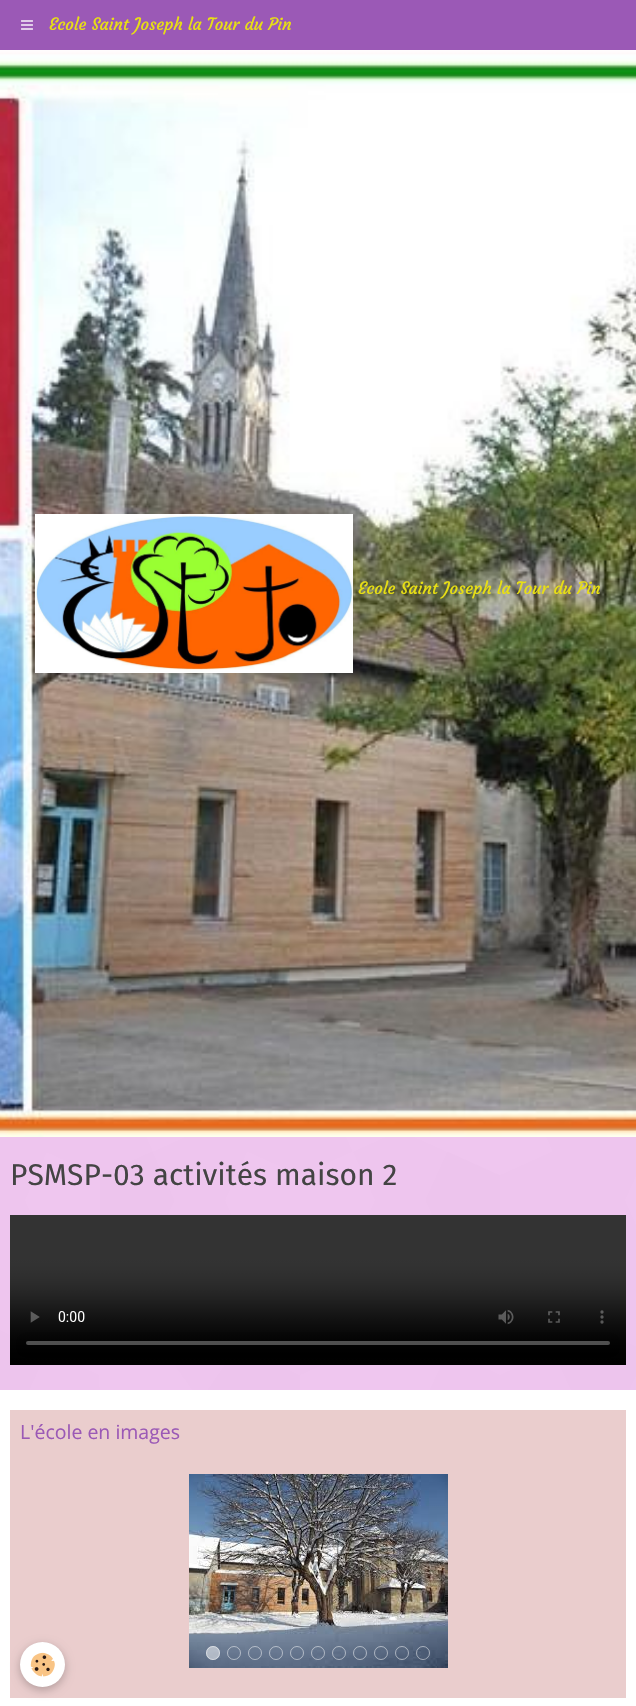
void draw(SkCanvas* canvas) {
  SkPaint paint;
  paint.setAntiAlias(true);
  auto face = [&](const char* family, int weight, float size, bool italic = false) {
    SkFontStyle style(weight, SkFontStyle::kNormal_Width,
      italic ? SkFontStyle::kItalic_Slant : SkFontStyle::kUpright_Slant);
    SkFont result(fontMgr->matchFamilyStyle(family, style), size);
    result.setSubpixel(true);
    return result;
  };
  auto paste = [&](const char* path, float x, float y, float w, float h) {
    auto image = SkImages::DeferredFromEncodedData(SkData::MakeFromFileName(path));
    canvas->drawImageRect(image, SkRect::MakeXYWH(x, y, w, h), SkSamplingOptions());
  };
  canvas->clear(0xffe0e0e0);
  paste("img/1.png", 0, 1137, 636, 253);
  paint.setColor(0xff9b59b6);
  canvas->drawRect(SkRect::MakeXYWH(0, 0, 636, 50), paint);
  paste("img/2.png", 21, 20, 12, 10);
  paste("img/3.png", 0, 50, 636, 1087);
  paste("img/4.png", 35, 514, 318, 159);
  paint.setColor(0xe3f1c4f2);
  canvas->drawRect(SkRect::MakeXYWH(0, 1137, 636, 253), paint);
  paste("img/5.png", 10, 1215, 616, 150);
  paint.setColor(0xffffffff);
  canvas->drawRect(SkRect::MakeXYWH(0, 1390, 636, 316), paint);
  paint.setColor(0xffeacdcd);
  canvas->drawRect(SkRect::MakeXYWH(10, 1410, 616, 288), paint);
  paste("img/6.png", 189, 1474, 259, 194);
  paint.setColor(0x80ffffff);
  canvas->drawCircle(213, 1653, 7, paint);
  paint.setStroke(true);
  paint.setStrokeWidth(1);
  canvas->drawCircle(213, 1653, 6.5f, paint);
  canvas->drawCircle(234, 1653, 6.5f, paint);
  canvas->drawCircle(255, 1653, 6.5f, paint);
  canvas->drawCircle(276, 1653, 6.5f, paint);
  canvas->drawCircle(297, 1653, 6.5f, paint);
  canvas->drawCircle(318, 1653, 6.5f, paint);
  canvas->drawCircle(339, 1653, 6.5f, paint);
  canvas->drawCircle(360, 1653, 6.5f, paint);
  canvas->drawCircle(381, 1653, 6.5f, paint);
  canvas->drawCircle(402, 1653, 6.5f, paint);
  canvas->drawCircle(423, 1653, 6.5f, paint);
  paint.setStroke(false);
  paint.setColor(0x3d000000);
  paint.setMaskFilter(SkMaskFilter::MakeBlur(kNormal_SkBlurStyle, 5));
  canvas->drawRoundRect(SkRect::MakeXYWH(20, 1645, 45, 45), 22.5f, 22.5f, paint);
  paint.setMaskFilter(nullptr);
  paint.setColor(0xffffffff);
  canvas->drawCircle(42.5f, 1664.5f, 22.5f, paint);
  paste("img/7.png", 30, 1652, 25, 25);
  auto f0 = face("Courgette", 400, 16.75f);
  paint.setColor(0xffe8df14);
  canvas->drawString("Ecole Saint Joseph la Tour du Pin", 49, 30, f0, paint);
  canvas->drawString("Ecole Saint Joseph la Tour du Pin", 358, 594, f0, paint);
  auto f1 = face("Fira Sans", 400, 30);
  paint.setColor(0xff444444);
  canvas->drawString("PSMSP-03 activités maison 2", 10, 1185, f1, paint);
  auto f2 = face("Open Sans", 400, 19.5f);
  paint.setColor(0xff9b59b6);
  canvas->drawString("L'école en images", 20, 1439, f2, paint);
}
